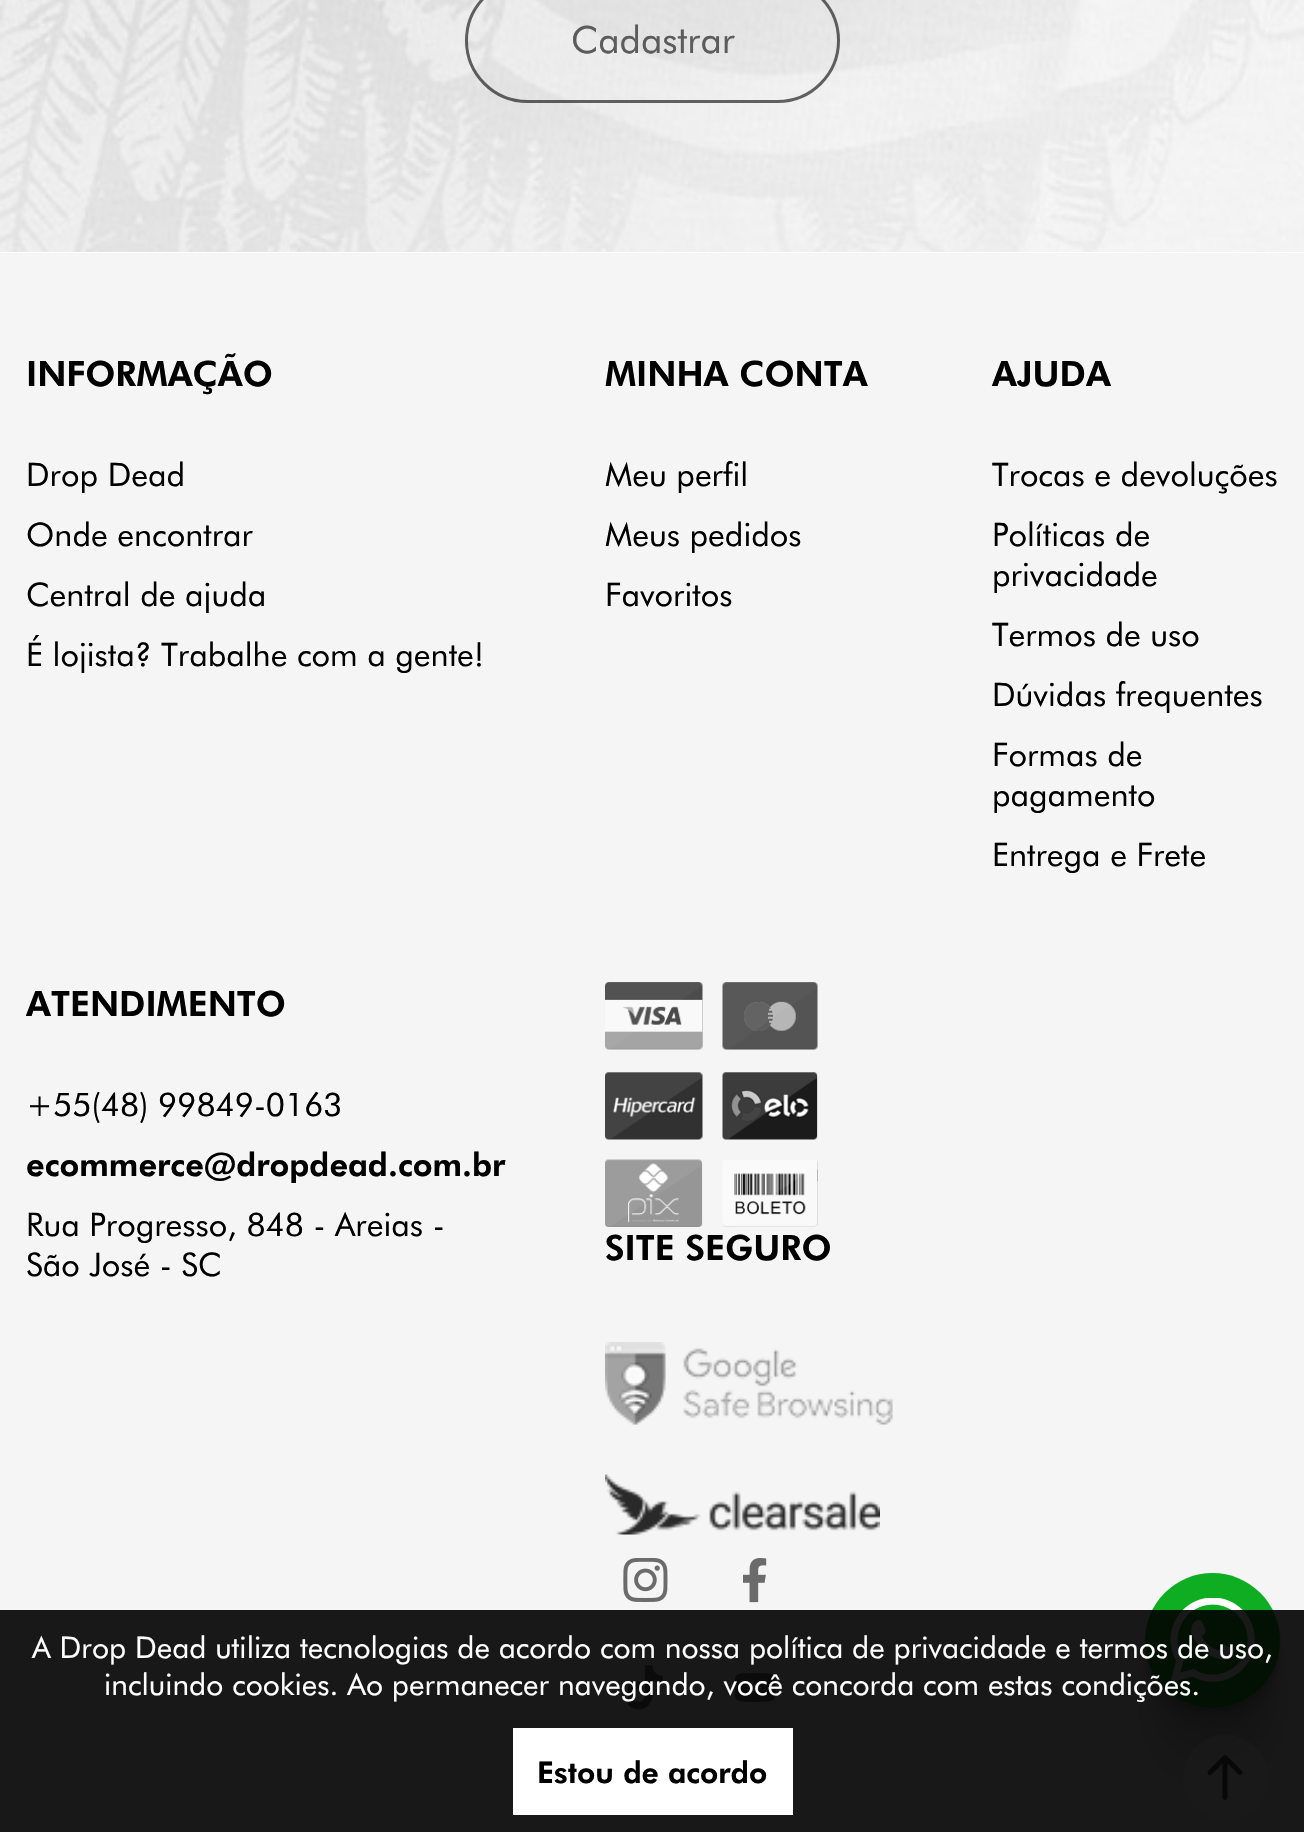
void draw(SkCanvas* canvas) {
  SkPaint paint;
  paint.setAntiAlias(true);
  auto face = [&](const char* family, int weight, float size, bool italic = false) {
    SkFontStyle style(weight, SkFontStyle::kNormal_Width,
      italic ? SkFontStyle::kItalic_Slant : SkFontStyle::kUpright_Slant);
    SkFont result(fontMgr->matchFamilyStyle(family, style), size);
    result.setSubpixel(true);
    return result;
  };
  auto paste = [&](const char* path, float x, float y, float w, float h) {
    auto image = SkImages::DeferredFromEncodedData(SkData::MakeFromFileName(path));
    canvas->drawImageRect(image, SkRect::MakeXYWH(x, y, w, h), SkSamplingOptions());
  };
  canvas->clear(0xffffffff);
  paste("img/1.png", 0, 0, 1304, 252);
  paint.setStroke(true);
  paint.setStrokeWidth(3);
  paint.setColor(0x99000000);
  canvas->drawRoundRect(SkRect::MakeXYWH(466.5f, -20.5f, 372, 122), 61, 61, paint);
  paint.setStroke(false);
  paint.setColor(0xfff5f5f5);
  canvas->drawRect(SkRect::MakeXYWH(0, 253, 1304, 1579), paint);
  paste("img/2.png", 605, 982, 98, 68);
  paste("img/3.png", 722, 982, 96, 68);
  paste("img/4.png", 605, 1072, 98, 68);
  paste("img/5.png", 722, 1072, 96, 68);
  paste("img/6.png", 605, 1159, 98, 68);
  paste("img/7.png", 722, 1160, 96, 67);
  paste("img/8.png", 605, 1342, 288, 83);
  paste("img/9.png", 605, 1474, 275, 61);
  paste("img/10.png", 623, 1558, 45, 44);
  paste("img/11.png", 743, 1558, 24, 45);
  paste("img/12.png", 628, 1665, 36, 45);
  paste("img/13.png", 735, 1673, 41, 29);
  paint.setColor(0x17000000);
  paint.setMaskFilter(SkMaskFilter::MakeBlur(kNormal_SkBlurStyle, 20));
  canvas->drawRoundRect(SkRect::MakeXYWH(1145, 1653, 135, 135), 67.5f, 67.5f, paint);
  paint.setMaskFilter(nullptr);
  paint.setMaskFilter(SkMaskFilter::MakeBlur(kNormal_SkBlurStyle, 10));
  canvas->drawRoundRect(SkRect::MakeXYWH(1145, 1613, 135, 135), 67.5f, 67.5f, paint);
  paint.setMaskFilter(nullptr);
  paint.setMaskFilter(SkMaskFilter::MakeBlur(kNormal_SkBlurStyle, 5));
  canvas->drawRoundRect(SkRect::MakeXYWH(1145, 1593, 135, 135), 67.5f, 67.5f, paint);
  paint.setMaskFilter(nullptr);
  paint.setMaskFilter(SkMaskFilter::MakeBlur(kNormal_SkBlurStyle, 2.5f));
  canvas->drawRoundRect(SkRect::MakeXYWH(1145, 1583, 135, 135), 67.5f, 67.5f, paint);
  paint.setMaskFilter(nullptr);
  paint.setMaskFilter(SkMaskFilter::MakeBlur(kNormal_SkBlurStyle, 1));
  canvas->drawRoundRect(SkRect::MakeXYWH(1145, 1578, 135, 135), 67.5f, 67.5f, paint);
  paint.setMaskFilter(nullptr);
  paint.setColor(0xff0fae22);
  canvas->drawCircle(1212.5f, 1640.5f, 67.5f, paint);
  paste("img/14.png", 1170, 1598, 85, 85);
  paint.setColor(0xb3ffffff);
  canvas->drawCircle(1225.5f, 1777.5f, 42.5f, paint);
  paste("img/15.png", 1207, 1755, 36, 45);
  paint.setColor(0xe6000000);
  canvas->drawRect(SkRect::MakeXYWH(0, 1610, 1304, 222), paint);
  paint.setColor(0xffffffff);
  canvas->drawRect(SkRect::MakeXYWH(513, 1728, 280, 87), paint);
  auto f0 = face("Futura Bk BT", 400, 37.5f);
  paint.setColor(0xff5c5c5c);
  canvas->drawString("Cadastrar", 571, 53, f0, paint);
  auto f1 = face("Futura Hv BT", 900, 35);
  paint.setColor(0xff000000);
  canvas->drawString("INFORMAÇÃO", 26, 386, f1, paint);
  auto f2 = face("Futura Bk BT", 400, 32.5f);
  {
    const struct { const char* s; float x, y; } items[] = {
      {"Drop Dead", 26, 486},
      {"Onde encontrar", 26, 546},
      {"Central de ajuda", 26, 606},
      {"É lojista? Trabalhe com a gente!", 26, 666},
    };
    for (auto [s, x, y] : items) {
      canvas->drawString(s, x, y, f2, paint);
    }
  }
  canvas->drawString("MINHA CONTA", 605, 386, f1, paint);
  {
    const struct { const char* s; float x, y; } items[] = {
      {"Meu perfil", 605, 486},
      {"Meus pedidos", 605, 546},
      {"Favoritos", 605, 606},
    };
    for (auto [s, x, y] : items) {
      canvas->drawString(s, x, y, f2, paint);
    }
  }
  canvas->drawString("AJUDA", 992, 386, f1, paint);
  {
    const struct { const char* s; float x, y; } items[] = {
      {"Trocas e devoluções", 992, 486},
      {"Políticas de", 992, 546},
      {"privacidade", 992, 586},
      {"Termos de uso", 992, 646},
      {"Dúvidas frequentes", 992, 706},
      {"Formas de", 992, 766},
      {"pagamento", 992, 806},
      {"Entrega e Frete", 992, 866},
    };
    for (auto [s, x, y] : items) {
      canvas->drawString(s, x, y, f2, paint);
    }
  }
  canvas->drawString("ATENDIMENTO", 26, 1016, f1, paint);
  canvas->drawString("+55(48) 99849-0163", 26, 1116, f2, paint);
  auto f3 = face("Futura Hv BT", 900, 32.5f);
  canvas->drawString("ecommerce@dropdead.com.br", 26, 1176, f3, paint);
  canvas->drawString("Rua Progresso, 848 - Areias -", 26, 1236, f2, paint);
  canvas->drawString("São José - SC", 26, 1276, f2, paint);
  canvas->drawString("SITE SEGURO", 605, 1260, f1, paint);
  auto f4 = face("Futura Bk BT", 400, 30);
  paint.setColor(0xffffffff);
  canvas->drawString("A Drop Dead utiliza tecnologias de acordo com nossa política de privacidade e termos de uso,", 32, 1658, f4, paint);
  canvas->drawString("incluindo cookies. Ao permanecer navegando, você concorda com estas condições.", 104, 1695, f4, paint);
  auto f5 = face("Futura Hv BT", 900, 30);
  paint.setColor(0xff000000);
  canvas->drawString("Estou de acordo", 537, 1783, f5, paint);
}
